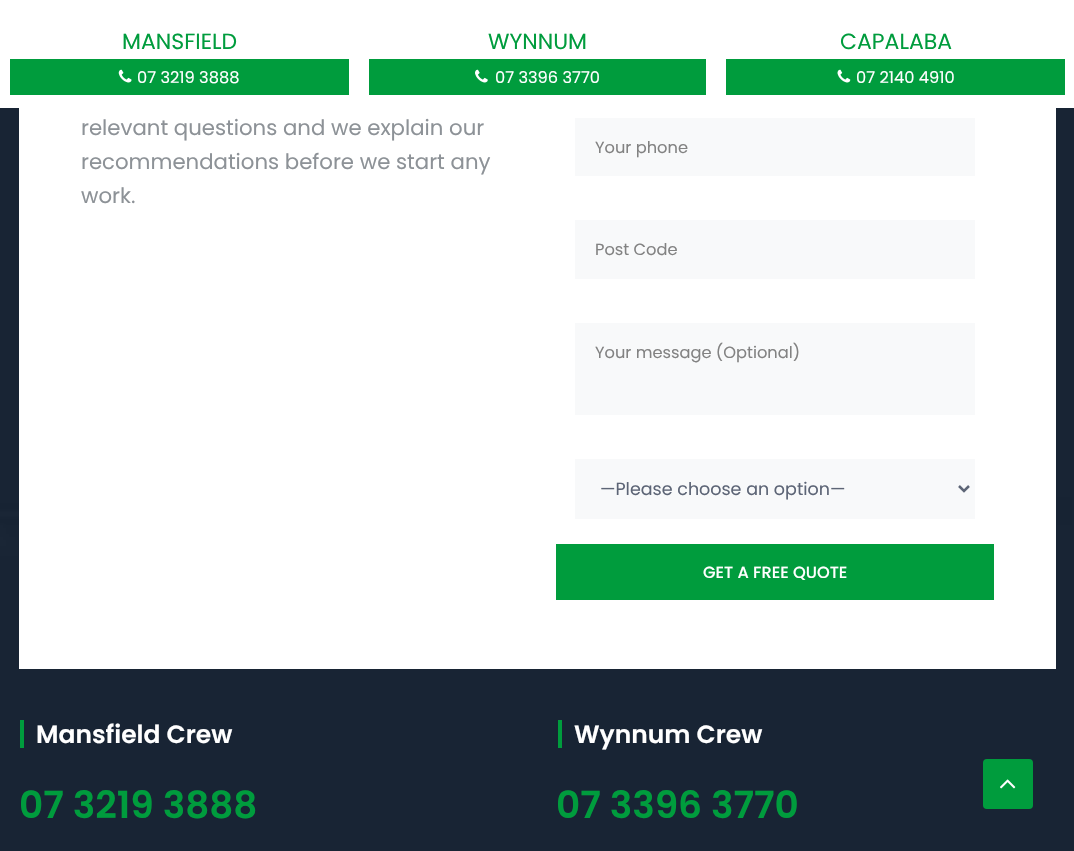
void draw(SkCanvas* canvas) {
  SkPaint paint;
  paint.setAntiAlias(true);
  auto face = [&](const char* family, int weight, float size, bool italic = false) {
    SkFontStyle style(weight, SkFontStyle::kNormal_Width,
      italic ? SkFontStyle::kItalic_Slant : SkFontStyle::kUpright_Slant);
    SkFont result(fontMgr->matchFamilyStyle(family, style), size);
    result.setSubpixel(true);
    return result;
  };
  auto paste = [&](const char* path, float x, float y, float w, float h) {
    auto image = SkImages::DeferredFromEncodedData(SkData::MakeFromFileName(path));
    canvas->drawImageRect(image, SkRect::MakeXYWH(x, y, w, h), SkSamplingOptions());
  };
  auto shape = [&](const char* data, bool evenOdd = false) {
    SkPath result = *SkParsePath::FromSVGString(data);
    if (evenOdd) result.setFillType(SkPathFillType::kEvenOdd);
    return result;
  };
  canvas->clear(0xffffffff);
  paint.setColor(0xff009c3d);
  canvas->drawRect(SkRect::MakeXYWH(10, 59, 339, 36), paint);
  paste("img/1.png", 118, 69, 14, 14);
  canvas->drawRect(SkRect::MakeXYWH(369, 59, 337, 36), paint);
  paste("img/2.png", 475, 69, 13, 14);
  canvas->drawRect(SkRect::MakeXYWH(726, 59, 339, 36), paint);
  paste("img/3.png", 837, 69, 14, 14);
  paste("img/4.png", 0, 108, 1074, 743);
  {
    const struct { float x, y, w, h; SkColor color; } items[] = {
      {19, 108, 1037, 561, 0xffffffff},
      {575, 118, 400, 58, 0xfff8f9fa},
      {575, 220, 400, 59, 0xfff8f9fa},
      {575, 323, 400, 92, 0xfff8f9fa},
      {575, 459, 400, 60, 0xfff8f9fa},
    };
    for (auto [x, y, w, h, color] : items) {
      paint.setColor(color);
      canvas->drawRect(SkRect::MakeXYWH(x, y, w, h), paint);
    }
  }
  paint.setStroke(true);
  paint.setStrokeWidth(2.5f);
  paint.setColor(0xff5d6576);
  canvas->drawPath(shape("M959 486L964 491L969 486"), paint);
  paint.setStroke(false);
  {
    const struct { float x, y, w, h; SkColor color; } items[] = {
      {556, 544, 438, 56, 0xff009c3d},
      {20, 720, 4, 28, 0xff009c3d},
      {558, 720, 4, 28, 0xff009c3d},
    };
    for (auto [x, y, w, h, color] : items) {
      paint.setColor(color);
      canvas->drawRect(SkRect::MakeXYWH(x, y, w, h), paint);
    }
  }
  canvas->drawRoundRect(SkRect::MakeXYWH(983, 759, 50, 50), 4, 4, paint);
  paste("img/5.png", 1000, 779, 16, 10);
  auto f0 = face("Poppins", 400, 22);
  canvas->drawString("MANSFIELD", 122, 49, f0, paint);
  auto f1 = face("Poppins", 400, 16.25f);
  paint.setColor(0xffffffff);
  canvas->drawString("07 3219 3888", 137, 83, f1, paint);
  paint.setColor(0xff009c3d);
  canvas->drawString("WYNNUM", 488, 49, f0, paint);
  paint.setColor(0xffffffff);
  canvas->drawString("07 3396 3770", 495, 83, f1, paint);
  paint.setColor(0xff009c3d);
  canvas->drawString("CAPALABA", 840, 49, f0, paint);
  paint.setColor(0xffffffff);
  canvas->drawString("07 2140 4910", 856, 83, f1, paint);
  auto f2 = face("Poppins", 400, 21.25f);
  paint.setColor(0xff8d9297);
  {
    const struct { const char* s; float x, y; } items[] = {
      {"relevant questions and we explain our", 81, 135},
      {"recommendations before we start any", 81, 169},
      {"work.", 81, 203},
    };
    for (auto [s, x, y] : items) {
      canvas->drawString(s, x, y, f2, paint);
    }
  }
  paint.setColor(0xff828282);
  {
    const struct { const char* s; float x, y; } items[] = {
      {"Your phone", 595, 153},
      {"Post Code", 595, 255},
      {"Your message (Optional)", 595, 358},
    };
    for (auto [s, x, y] : items) {
      canvas->drawString(s, x, y, f1, paint);
    }
  }
  auto f3 = face("Poppins", 400, 17.5f);
  paint.setColor(0xff5d6576);
  canvas->drawString("—Please choose an option—", 600, 495, f3, paint);
  auto f4 = face("Poppins", 500, 16.25f);
  paint.setColor(0xffffffff);
  canvas->drawString("GET A FREE QUOTE", 703, 578, f4, paint);
  auto f5 = face("Poppins", 600, 25);
  canvas->drawString("Mansfield Crew", 36, 743, f5, paint);
  auto f6 = face("Poppins", 600, 37.5f);
  paint.setColor(0xff009c3d);
  canvas->drawString("07 3219 3888", 19, 818, f6, paint);
  paint.setColor(0xffffffff);
  canvas->drawString("Wynnum Crew", 574, 743, f5, paint);
  paint.setColor(0xff009c3d);
  canvas->drawString("07 3396 3770", 556, 818, f6, paint);
}
